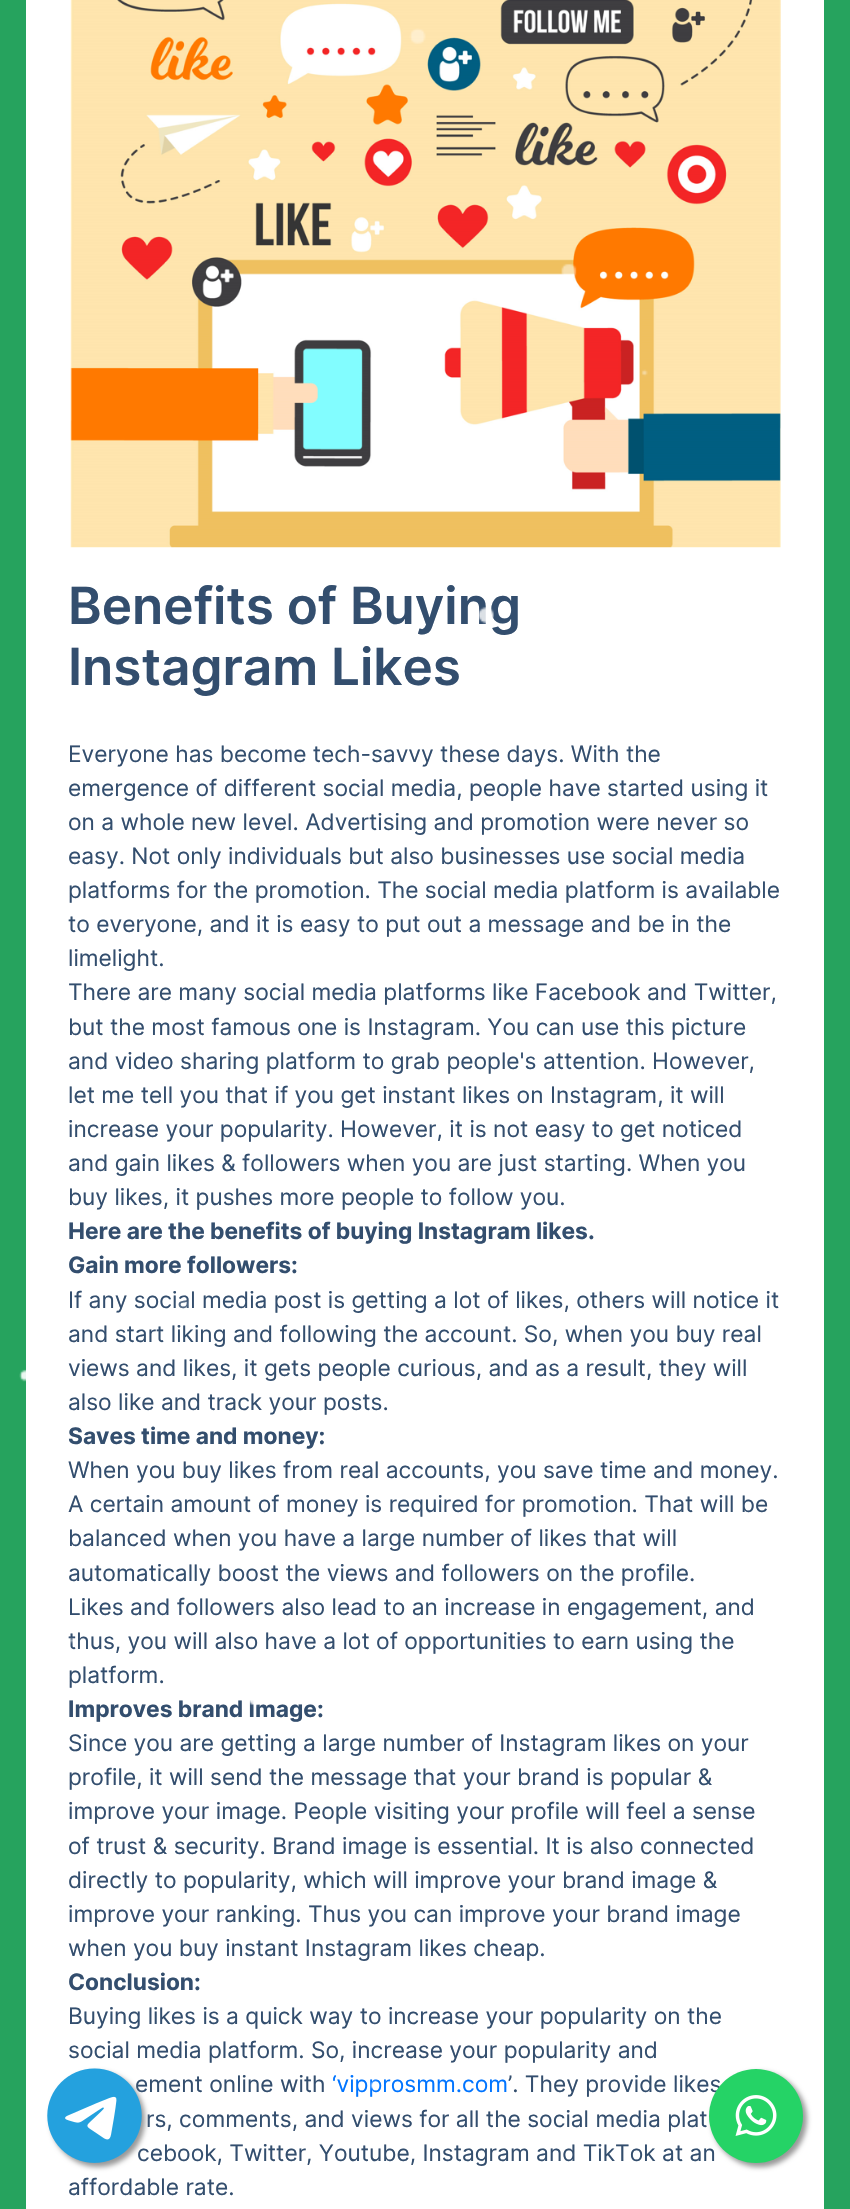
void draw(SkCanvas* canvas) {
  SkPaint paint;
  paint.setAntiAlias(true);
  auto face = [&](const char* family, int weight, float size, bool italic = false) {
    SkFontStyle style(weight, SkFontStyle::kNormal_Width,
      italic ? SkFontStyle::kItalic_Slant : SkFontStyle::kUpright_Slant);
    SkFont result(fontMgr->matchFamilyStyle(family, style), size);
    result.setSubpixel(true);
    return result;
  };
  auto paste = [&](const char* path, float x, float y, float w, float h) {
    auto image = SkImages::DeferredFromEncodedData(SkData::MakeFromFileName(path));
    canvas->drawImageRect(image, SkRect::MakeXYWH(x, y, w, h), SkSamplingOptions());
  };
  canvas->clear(0xff26a35e);
  paint.setColor(0xffffffff);
  canvas->drawRect(SkRect::MakeXYWH(26, 0, 798, 2209), paint);
  paste("img/2.png", 70, 0, 711, 548);
  paint.setColor(0xff999999);
  paint.setMaskFilter(SkMaskFilter::MakeBlur(kNormal_SkBlurStyle, 2.5f));
  canvas->drawRoundRect(SkRect::MakeXYWH(712, 2072, 95, 95), 47.5f, 47.5f, paint);
  paint.setMaskFilter(nullptr);
  auto f0 = face("Inter", 600, 51.25f);
  paint.setColor(0xff334e6e);
  canvas->drawString("Benefits of Buying", 68, 624, f0, paint);
  canvas->drawString("Instagram Likes", 68, 685, f0, paint);
  auto f1 = face("Inter", 400, 22.75f);
  {
    const struct { const char* s; float x, y; } items[] = {
      {"Everyone has become tech-savvy these days. With the", 68, 762},
      {"emergence of different social media, people have started using it", 68, 796},
      {"on a whole new level. Advertising and promotion were never so", 68, 830},
      {"easy. Not only individuals but also businesses use social media", 68, 864},
      {"platforms for the promotion. The social media platform is available", 68, 898},
      {"to everyone, and it is easy to put out a message and be in the", 68, 932},
      {"limelight.", 68, 966},
      {"There are many social media platforms like Facebook and Twitter,", 68, 1000},
      {"but the most famous one is Instagram. You can use this picture", 68, 1035},
      {"and video sharing platform to grab people's attention. However,", 68, 1069},
      {"let me tell you that if you get instant likes on Instagram, it will", 68, 1103},
      {"increase your popularity. However, it is not easy to get noticed", 68, 1137},
      {"and gain likes & followers when you are just starting. When you", 68, 1171},
      {"buy likes, it pushes more people to follow you.", 68, 1205},
    };
    for (auto [s, x, y] : items) {
      canvas->drawString(s, x, y, f1, paint);
    }
  }
  auto f2 = face("Inter", 700, 22.75f);
  canvas->drawString("Here are the benefits of buying Instagram likes.", 68, 1239, f2, paint);
  canvas->drawString("Gain more followers:", 68, 1273, f2, paint);
  {
    const struct { const char* s; float x, y; } items[] = {
      {"If any social media post is getting a lot of likes, others will notice it", 68, 1308},
      {"and start liking and following the account. So, when you buy real", 68, 1342},
      {"views and likes, it gets people curious, and as a result, they will", 68, 1376},
      {"also like and track your posts.", 68, 1410},
    };
    for (auto [s, x, y] : items) {
      canvas->drawString(s, x, y, f1, paint);
    }
  }
  canvas->drawString("Saves time and money:", 68, 1444, f2, paint);
  {
    const struct { const char* s; float x, y; } items[] = {
      {"When you buy likes from real accounts, you save time and money.", 68, 1478},
      {"A certain amount of money is required for promotion. That will be", 68, 1512},
      {"balanced when you have a large number of likes that will", 68, 1546},
      {"automatically boost the views and followers on the profile.", 68, 1581},
      {"Likes and followers also lead to an increase in engagement, and", 68, 1615},
      {"thus, you will also have a lot of opportunities to earn using the", 68, 1649},
      {"platform.", 68, 1683},
    };
    for (auto [s, x, y] : items) {
      canvas->drawString(s, x, y, f1, paint);
    }
  }
  canvas->drawString("Improves brand Image:", 68, 1717, f2, paint);
  {
    const struct { const char* s; float x, y; } items[] = {
      {"Since you are getting a large number of Instagram likes on your", 68, 1751},
      {"profile, it will send the message that your brand is popular &", 68, 1785},
      {"improve your image. People visiting your profile will feel a sense", 68, 1819},
      {"of trust & security. Brand image is essential. It is also connected", 68, 1854},
      {"directly to popularity, which will improve your brand image &", 68, 1888},
      {"improve your ranking. Thus you can improve your brand image", 68, 1922},
      {"when you buy instant Instagram likes cheap.", 68, 1956},
    };
    for (auto [s, x, y] : items) {
      canvas->drawString(s, x, y, f1, paint);
    }
  }
  canvas->drawString("Conclusion:", 68, 1990, f2, paint);
  {
    const struct { const char* s; float x, y; } items[] = {
      {"Buying likes is a quick way to increase your popularity on the", 68, 2024},
      {"social media platform. So, increase your popularity and", 68, 2058},
      {"ement online with", 135, 2092},
    };
    for (auto [s, x, y] : items) {
      canvas->drawString(s, x, y, f1, paint);
    }
  }
  paint.setColor(0xff0074ff);
  canvas->drawString("‘vipprosmm.com", 332, 2092, f1, paint);
  paint.setColor(0xff334e6e);
  canvas->drawString("’. They provide likes", 508, 2092, f1, paint);
  paste("img/1.png", 19, 28, 629, 2062);
  {
    const struct { const char* s; float x, y; } items[] = {
      {"rs, comments, and views for all the social media plat", 146, 2127},
      {"cebook, Twitter, Youtube, Instagram and TikTok at an", 137, 2161},
      {"affordable rate.", 68, 2195},
    };
    for (auto [s, x, y] : items) {
      canvas->drawString(s, x, y, f1, paint);
    }
  }
  paint.setColor(0xff999999);
  paint.setMaskFilter(SkMaskFilter::MakeBlur(kNormal_SkBlurStyle, 2.5f));
  canvas->drawRoundRect(SkRect::MakeXYWH(51, 2072, 94, 95), 47, 47, paint);
  paint.setMaskFilter(nullptr);
  paint.setColor(0xffffffff);
  canvas->drawRect(SkRect::MakeXYWH(65, 2096, 52, 44), paint);
  paste("img/3.png", 47, 2068, 95, 95);
  paint.setColor(0xff25d366);
  canvas->drawCircle(756, 2116, 47, paint);
  paste("img/4.png", 735, 2095, 42, 41);
}
